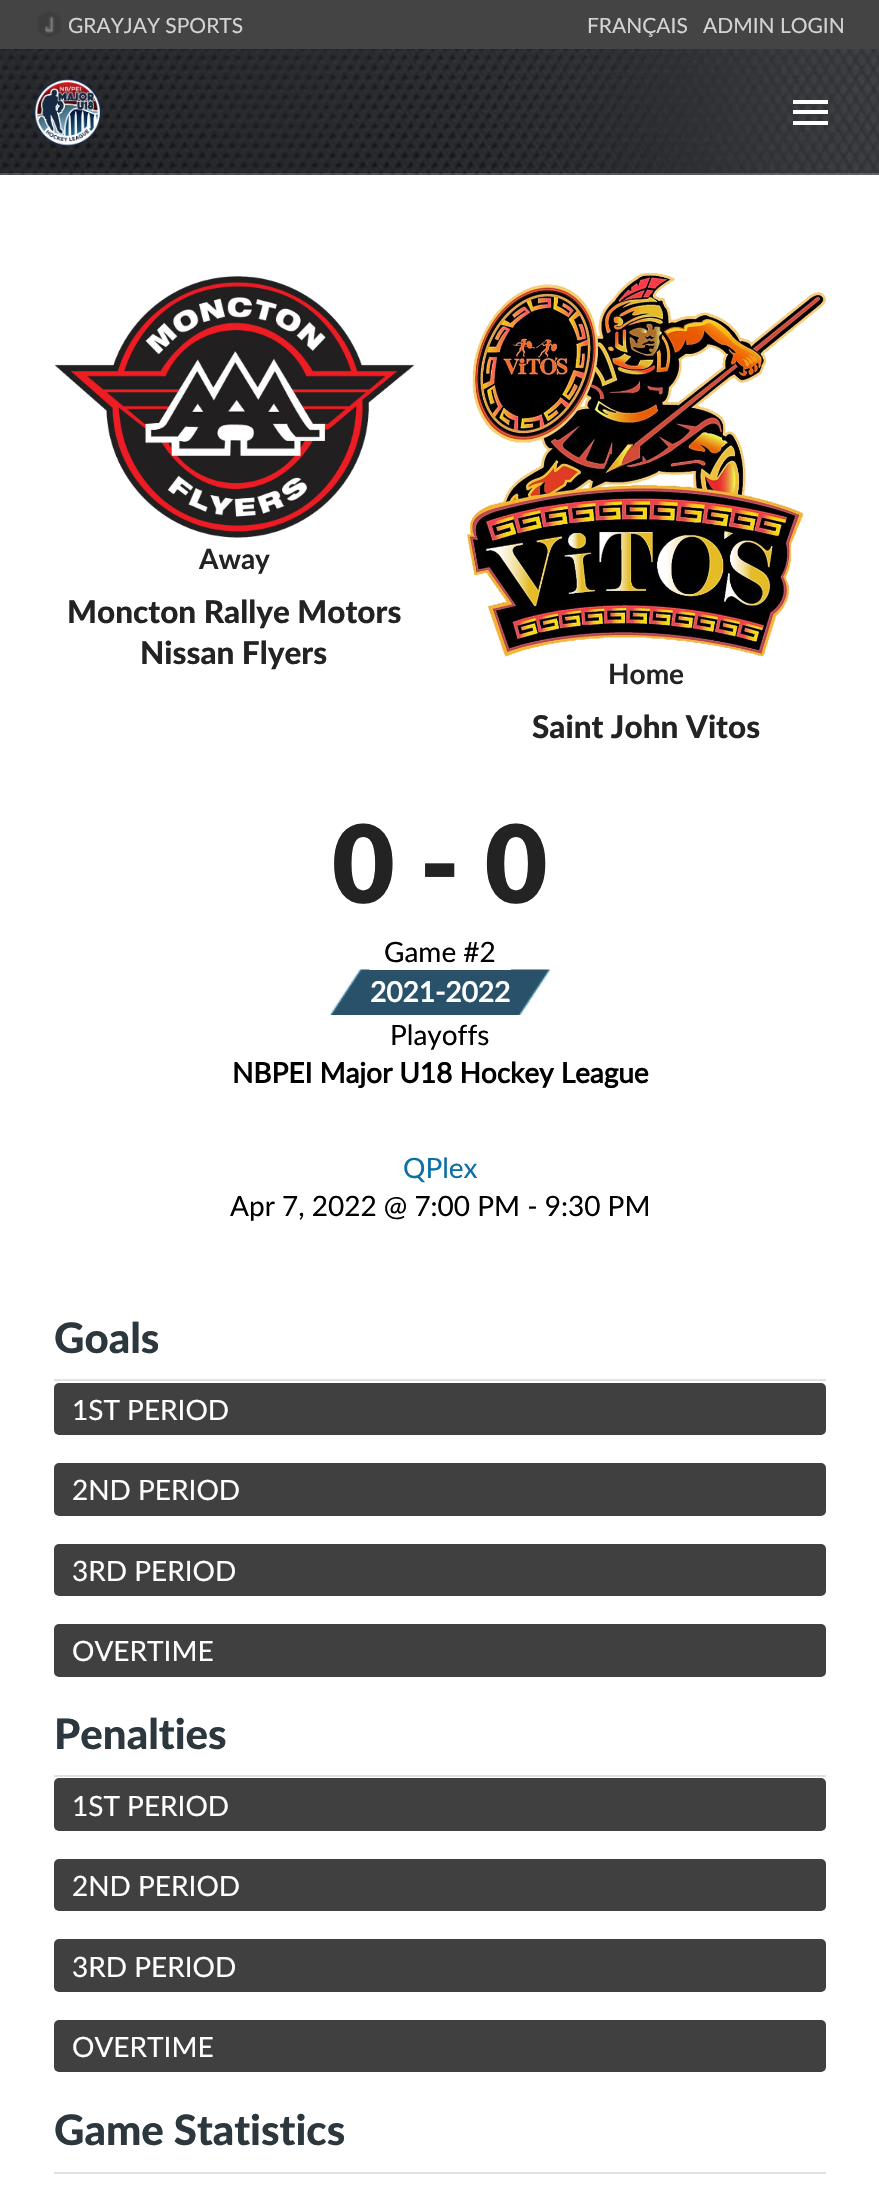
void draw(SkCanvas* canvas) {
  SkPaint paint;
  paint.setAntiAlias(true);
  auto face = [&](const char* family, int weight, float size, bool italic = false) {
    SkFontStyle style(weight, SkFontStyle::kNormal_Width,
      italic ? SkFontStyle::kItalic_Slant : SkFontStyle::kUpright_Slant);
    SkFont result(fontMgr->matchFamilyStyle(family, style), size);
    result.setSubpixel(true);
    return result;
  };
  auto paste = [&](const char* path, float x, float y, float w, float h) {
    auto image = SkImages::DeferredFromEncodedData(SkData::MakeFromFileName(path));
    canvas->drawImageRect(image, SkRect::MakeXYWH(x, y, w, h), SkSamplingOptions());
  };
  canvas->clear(0xffffffff);
  paint.setColor(0xff444444);
  canvas->drawRect(SkRect::MakeXYWH(0, 0, 879, 49), paint);
  paste("img/1.png", 37, 11, 24, 27);
  paste("img/2.png", 0, 49, 879, 126);
  paint.setColor(0x33ffffff);
  canvas->drawRect(SkRect::MakeXYWH(0, 173, 879, 2), paint);
  paste("img/3.png", 33, 78, 69, 69);
  {
    const struct { float x, y, w, h; SkColor color; } items[] = {
      {793, 100, 35, 4, 0xffffffff},
      {793, 110, 35, 4, 0xffffffff},
      {793, 121, 35, 4, 0xffffffff},
    };
    for (auto [x, y, w, h, color] : items) {
      paint.setColor(color);
      canvas->drawRect(SkRect::MakeXYWH(x, y, w, h), paint);
    }
  }
  paste("img/4.png", 55, 276, 359, 262);
  paste("img/5.png", 467, 273, 359, 384);
  paint.setColor(0xff295169);
  canvas->drawRect(SkRect::MakeXYWH(369, 970, 142, 45), paint);
  paste("img/6.png", 330, 969, 40, 46);
  paste("img/7.png", 511, 969, 39, 46);
  paint.setColor(0xffe1e1e1);
  canvas->drawRect(SkRect::MakeXYWH(54, 1379, 772, 2), paint);
  paint.setColor(0xff404040);
  canvas->drawRoundRect(SkRect::MakeXYWH(54, 1383, 772, 52), 5, 5, paint);
  canvas->drawRoundRect(SkRect::MakeXYWH(54, 1463, 772, 53), 5, 5, paint);
  canvas->drawRoundRect(SkRect::MakeXYWH(54, 1544, 772, 52), 5, 5, paint);
  canvas->drawRoundRect(SkRect::MakeXYWH(54, 1624, 772, 53), 5, 5, paint);
  paint.setColor(0xffe1e1e1);
  canvas->drawRect(SkRect::MakeXYWH(54, 1775, 772, 2), paint);
  paint.setColor(0xff404040);
  canvas->drawRoundRect(SkRect::MakeXYWH(54, 1778, 772, 53), 5, 5, paint);
  canvas->drawRoundRect(SkRect::MakeXYWH(54, 1859, 772, 52), 5, 5, paint);
  canvas->drawRoundRect(SkRect::MakeXYWH(54, 1939, 772, 53), 5, 5, paint);
  canvas->drawRoundRect(SkRect::MakeXYWH(54, 2020, 772, 52), 5, 5, paint);
  paint.setColor(0xffe1e1e1);
  canvas->drawRect(SkRect::MakeXYWH(54, 2172, 772, 2), paint);
  auto f0 = face("Lato", 400, 21);
  paint.setColor(0xffd2d3d3);
  {
    const struct { const char* s; float x, y; } items[] = {
      {"GRAYJAY SPORTS", 68, 33},
      {"FRANÇAIS", 587, 33},
      {"ADMIN LOGIN", 703, 33},
    };
    for (auto [s, x, y] : items) {
      canvas->drawString(s, x, y, f0, paint);
    }
  }
  auto f1 = face("Lato", 700, 28);
  paint.setColor(0xff232323);
  canvas->drawString("Away", 199, 569, f1, paint);
  auto f2 = face("Lato", 900, 31.5f);
  canvas->drawString("Moncton Rallye Motors", 67, 623, f2, paint);
  canvas->drawString("Nissan Flyers", 140, 664, f2, paint);
  canvas->drawString("Home", 608, 684, f1, paint);
  canvas->drawString("Saint John Vitos", 532, 738, f2, paint);
  auto f3 = face("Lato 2", 900, 108);
  canvas->drawString("0 - 0", 332, 903, f3, paint);
  auto f4 = face("Lato", 400, 28);
  paint.setColor(0xff000000);
  canvas->drawString("Game #2", 384, 962, f4, paint);
  auto f5 = face("Lato 2", 700, 28);
  paint.setColor(0xffffffff);
  canvas->drawString("2021-2022", 370, 1002, f5, paint);
  paint.setColor(0xff000000);
  canvas->drawString("Playoffs", 390, 1045, f4, paint);
  canvas->drawString("NBPEI Major U18 Hockey League", 232, 1083, f5, paint);
  paint.setColor(0xff0b70a5);
  canvas->drawString("QPlex", 403, 1178, f4, paint);
  paint.setColor(0xff000000);
  canvas->drawString("Apr 7, 2022 @ 7:00 PM - 9:30 PM", 230, 1216, f4, paint);
  auto f6 = face("Lato", 900, 42);
  paint.setColor(0xff2c383e);
  canvas->drawString("Goals", 54, 1353, f6, paint);
  paint.setColor(0xffffffff);
  {
    const struct { const char* s; float x, y; } items[] = {
      {"1ST PERIOD", 72, 1420},
      {"2ND PERIOD", 72, 1500},
      {"3RD PERIOD", 72, 1581},
      {"OVERTIME", 72, 1661},
    };
    for (auto [s, x, y] : items) {
      canvas->drawString(s, x, y, f4, paint);
    }
  }
  paint.setColor(0xff2c383e);
  canvas->drawString("Penalties", 54, 1749, f6, paint);
  paint.setColor(0xffffffff);
  {
    const struct { const char* s; float x, y; } items[] = {
      {"1ST PERIOD", 72, 1816},
      {"2ND PERIOD", 72, 1896},
      {"3RD PERIOD", 72, 1977},
      {"OVERTIME", 72, 2057},
    };
    for (auto [s, x, y] : items) {
      canvas->drawString(s, x, y, f4, paint);
    }
  }
  paint.setColor(0xff2c383e);
  canvas->drawString("Game Statistics", 54, 2145, f6, paint);
}
